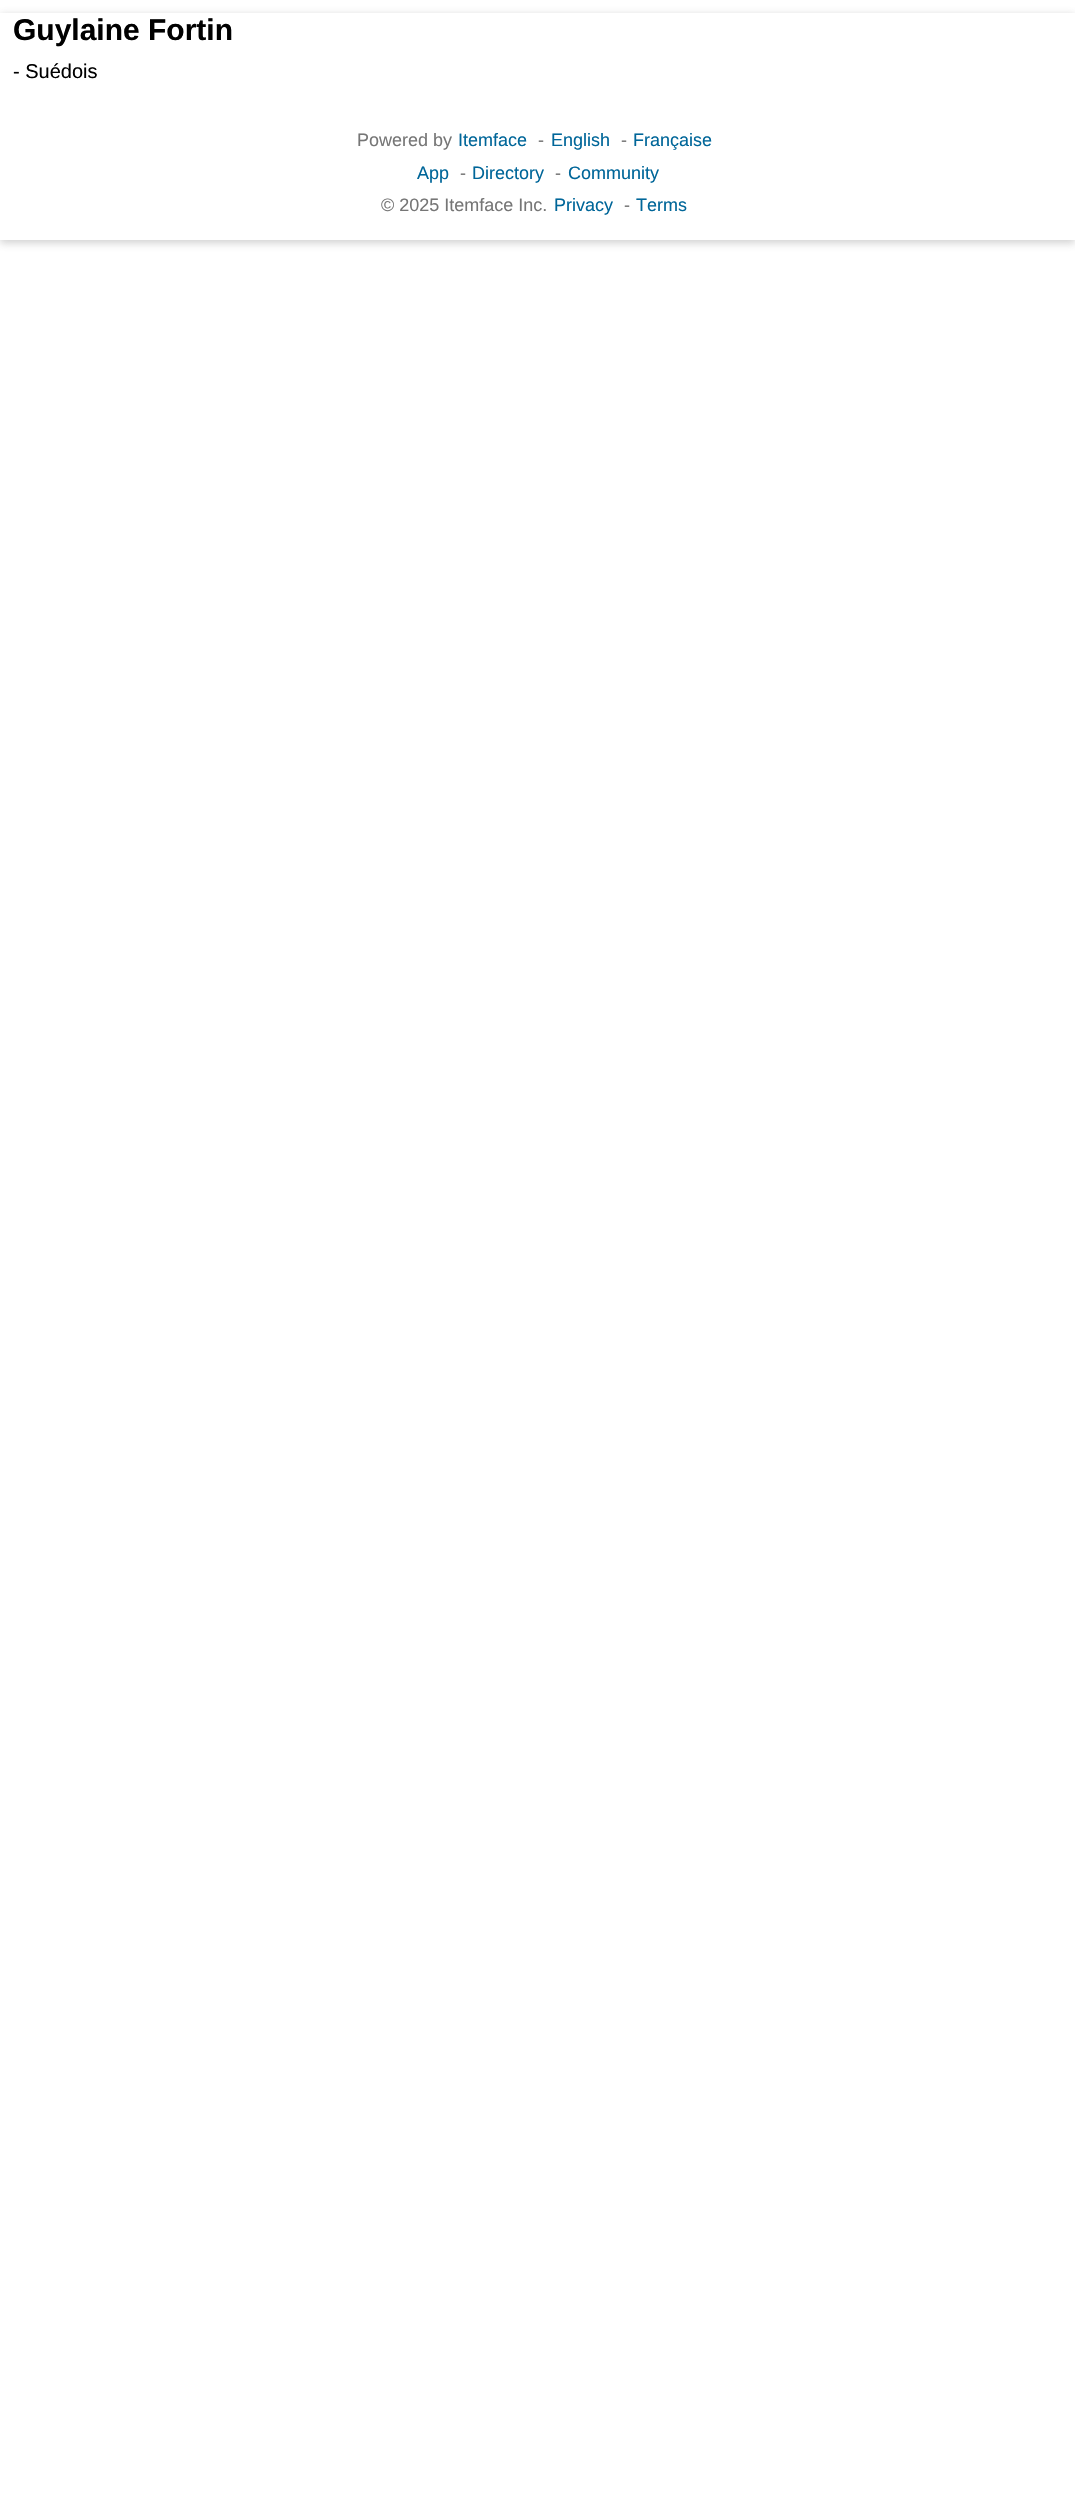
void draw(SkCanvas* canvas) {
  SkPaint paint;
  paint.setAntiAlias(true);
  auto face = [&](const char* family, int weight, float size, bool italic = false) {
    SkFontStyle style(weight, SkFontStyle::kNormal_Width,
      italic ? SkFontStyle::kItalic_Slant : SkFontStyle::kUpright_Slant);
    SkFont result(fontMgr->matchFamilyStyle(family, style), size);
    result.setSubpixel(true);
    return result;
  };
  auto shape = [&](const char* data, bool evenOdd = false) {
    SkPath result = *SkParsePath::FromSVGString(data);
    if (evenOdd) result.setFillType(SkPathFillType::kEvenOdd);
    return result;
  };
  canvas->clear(0xffffffff);
  canvas->save();
  canvas->clipPath(shape("M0 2H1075V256H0ZM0 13H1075V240H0Z", true), true);
  paint.setColor(0x4d646464);
  paint.setMaskFilter(SkMaskFilter::MakeBlur(kNormal_SkBlurStyle, 4));
  canvas->drawRect(SkRect::MakeXYWH(0, 15, 1075, 228), paint);
  paint.setMaskFilter(nullptr);
  canvas->restore();
  auto f0 = face("Liberation Sans", 700, 30);
  paint.setColor(0xff000000);
  canvas->drawString("Guylaine Fortin", 13, 40, f0, paint);
  auto f1 = face("Liberation Sans", 400, 20);
  canvas->drawString("- Suédois", 13, 78, f1, paint);
  auto f2 = face("Liberation Sans", 400, 18);
  paint.setColor(0xff767676);
  canvas->drawString("Powered by", 357, 146, f2, paint);
  paint.setColor(0xff006699);
  canvas->drawString("Itemface", 458, 146, f2, paint);
  paint.setColor(0xff767676);
  canvas->drawString("-", 538, 146, f2, paint);
  paint.setColor(0xff006699);
  canvas->drawString("English", 551, 146, f2, paint);
  paint.setColor(0xff767676);
  canvas->drawString("-", 621, 146, f2, paint);
  paint.setColor(0xff006699);
  canvas->drawString("Française", 633, 146, f2, paint);
  canvas->drawString("App", 417, 179, f2, paint);
  paint.setColor(0xff767676);
  canvas->drawString("-", 460, 179, f2, paint);
  paint.setColor(0xff006699);
  canvas->drawString("Directory", 472, 179, f2, paint);
  paint.setColor(0xff767676);
  canvas->drawString("-", 555, 179, f2, paint);
  paint.setColor(0xff006699);
  canvas->drawString("Community", 568, 179, f2, paint);
  paint.setColor(0xff767676);
  canvas->drawString("© 2025 Itemface Inc.", 381, 211, f2, paint);
  paint.setColor(0xff006699);
  canvas->drawString("Privacy", 554, 211, f2, paint);
  paint.setColor(0xff767676);
  canvas->drawString("-", 624, 211, f2, paint);
  paint.setColor(0xff006699);
  canvas->drawString("Terms", 636, 211, f2, paint);
}
